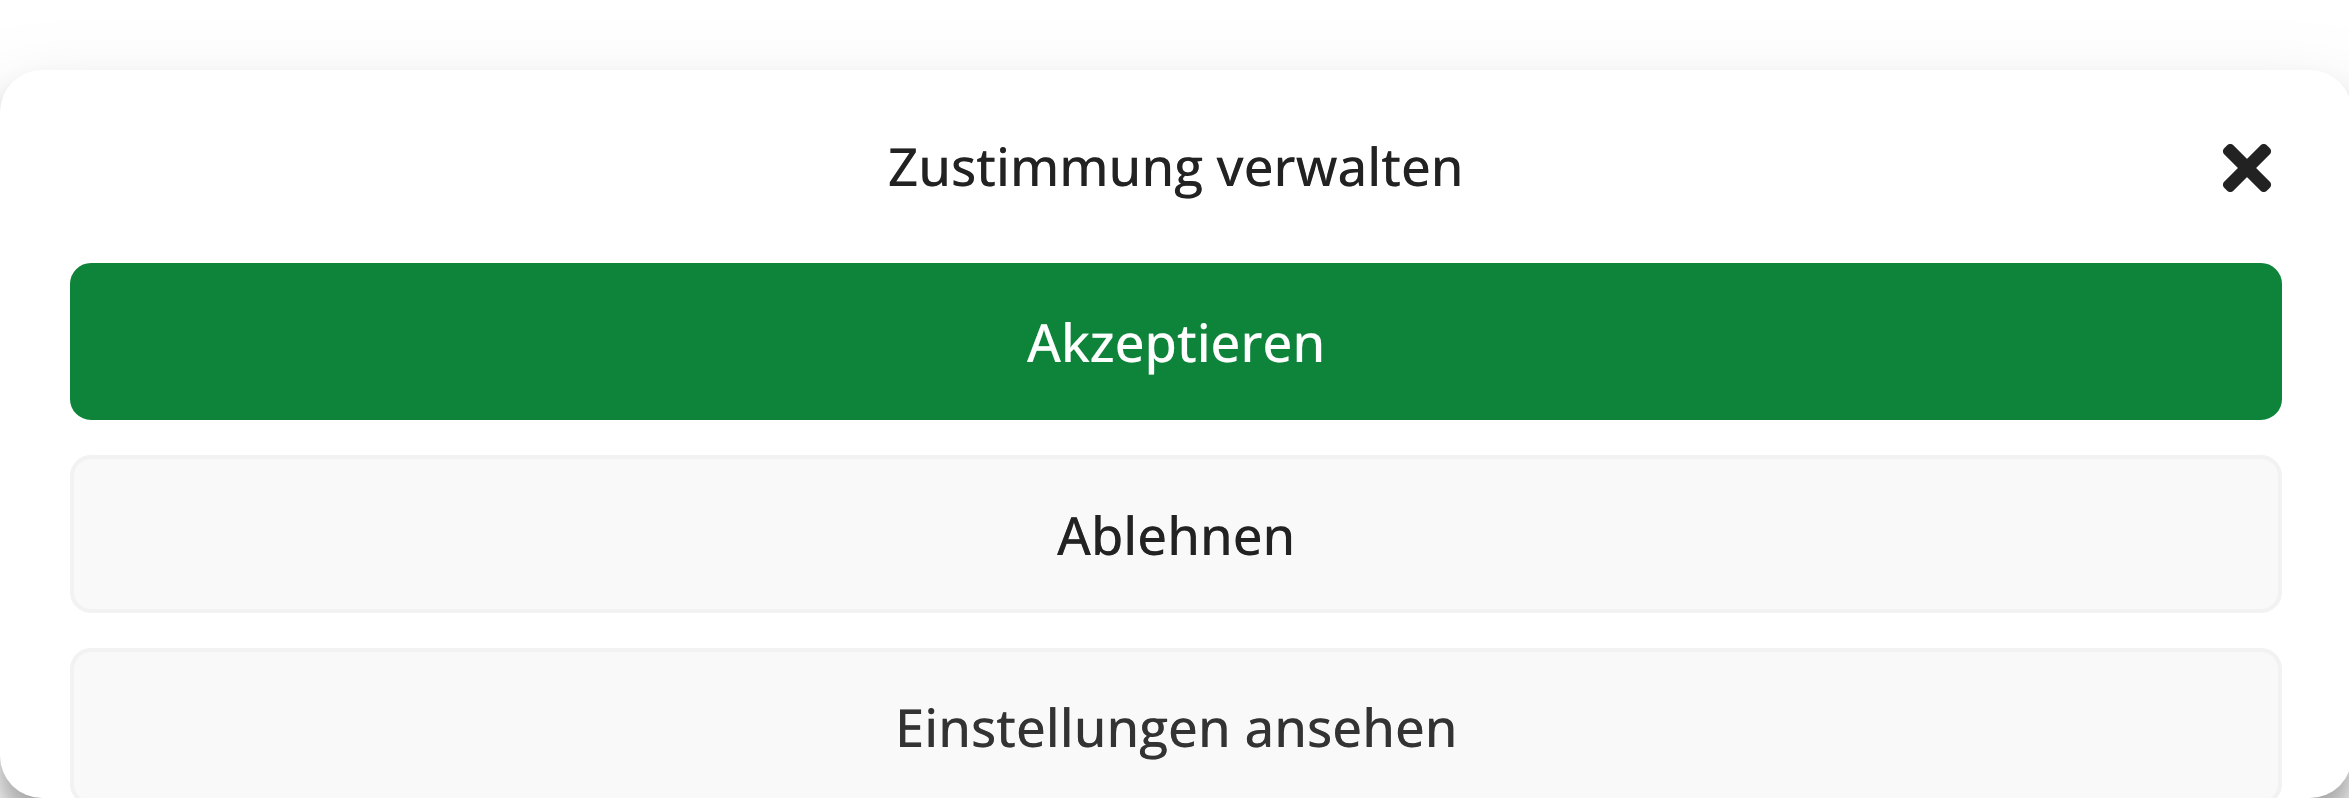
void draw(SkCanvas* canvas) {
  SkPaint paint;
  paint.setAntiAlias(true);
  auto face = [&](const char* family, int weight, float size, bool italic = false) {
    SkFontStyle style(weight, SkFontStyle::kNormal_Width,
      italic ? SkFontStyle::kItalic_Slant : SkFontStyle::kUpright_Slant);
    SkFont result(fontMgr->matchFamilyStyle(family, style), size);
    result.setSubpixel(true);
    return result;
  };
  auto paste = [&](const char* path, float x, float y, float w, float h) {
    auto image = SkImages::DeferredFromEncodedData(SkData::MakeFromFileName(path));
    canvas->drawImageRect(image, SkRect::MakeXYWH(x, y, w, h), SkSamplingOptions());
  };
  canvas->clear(0xffffffff);
  paint.setColor(0x3b000000);
  paint.setMaskFilter(SkMaskFilter::MakeBlur(kNormal_SkBlurStyle, 10.5f));
  canvas->drawRoundRect(SkRect::MakeXYWH(0, 91, 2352, 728), 42, 42, paint);
  paint.setMaskFilter(nullptr);
  paint.setColor(0x30000000);
  paint.setMaskFilter(SkMaskFilter::MakeBlur(kNormal_SkBlurStyle, 35));
  canvas->drawRoundRect(SkRect::MakeXYWH(0, 105, 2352, 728), 42, 42, paint);
  paint.setMaskFilter(nullptr);
  paint.setColor(0xffffffff);
  canvas->drawRoundRect(SkRect::MakeXYWH(0, 70, 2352, 728), 42, 42, paint);
  paste("img/1.png", 2222, 143, 50, 50);
  paint.setColor(0xff0d8439);
  canvas->drawRoundRect(SkRect::MakeXYWH(72, 265, 2208, 153), 19, 19, paint);
  paint.setStroke(true);
  paint.setStrokeWidth(4);
  canvas->drawRoundRect(SkRect::MakeXYWH(72, 265, 2208, 153), 19, 19, paint);
  paint.setStroke(false);
  paint.setColor(0xfff9f9f9);
  canvas->drawRoundRect(SkRect::MakeXYWH(72, 457, 2208, 154), 19, 19, paint);
  paint.setStroke(true);
  paint.setColor(0xfff2f2f2);
  canvas->drawRoundRect(SkRect::MakeXYWH(72, 457, 2208, 154), 19, 19, paint);
  paint.setStroke(false);
  paint.setColor(0xfff9f9f9);
  canvas->drawRoundRect(SkRect::MakeXYWH(72, 650, 2208, 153), 19, 19, paint);
  paint.setStroke(true);
  paint.setColor(0xfff2f2f2);
  canvas->drawRoundRect(SkRect::MakeXYWH(72, 650, 2208, 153), 19, 19, paint);
  auto f0 = face("Open Sans", 500, 52.5f);
  paint.setStroke(false);
  paint.setColor(0xff222222);
  canvas->drawString("Zustimmung verwalten", 888, 186, f0, paint);
  paint.setColor(0xffffffff);
  canvas->drawString("Akzeptieren", 1027, 362, f0, paint);
  paint.setColor(0xff222222);
  canvas->drawString("Ablehnen", 1057, 555, f0, paint);
  paint.setColor(0xff333333);
  canvas->drawString("Einstellungen ansehen", 895, 747, f0, paint);
}
